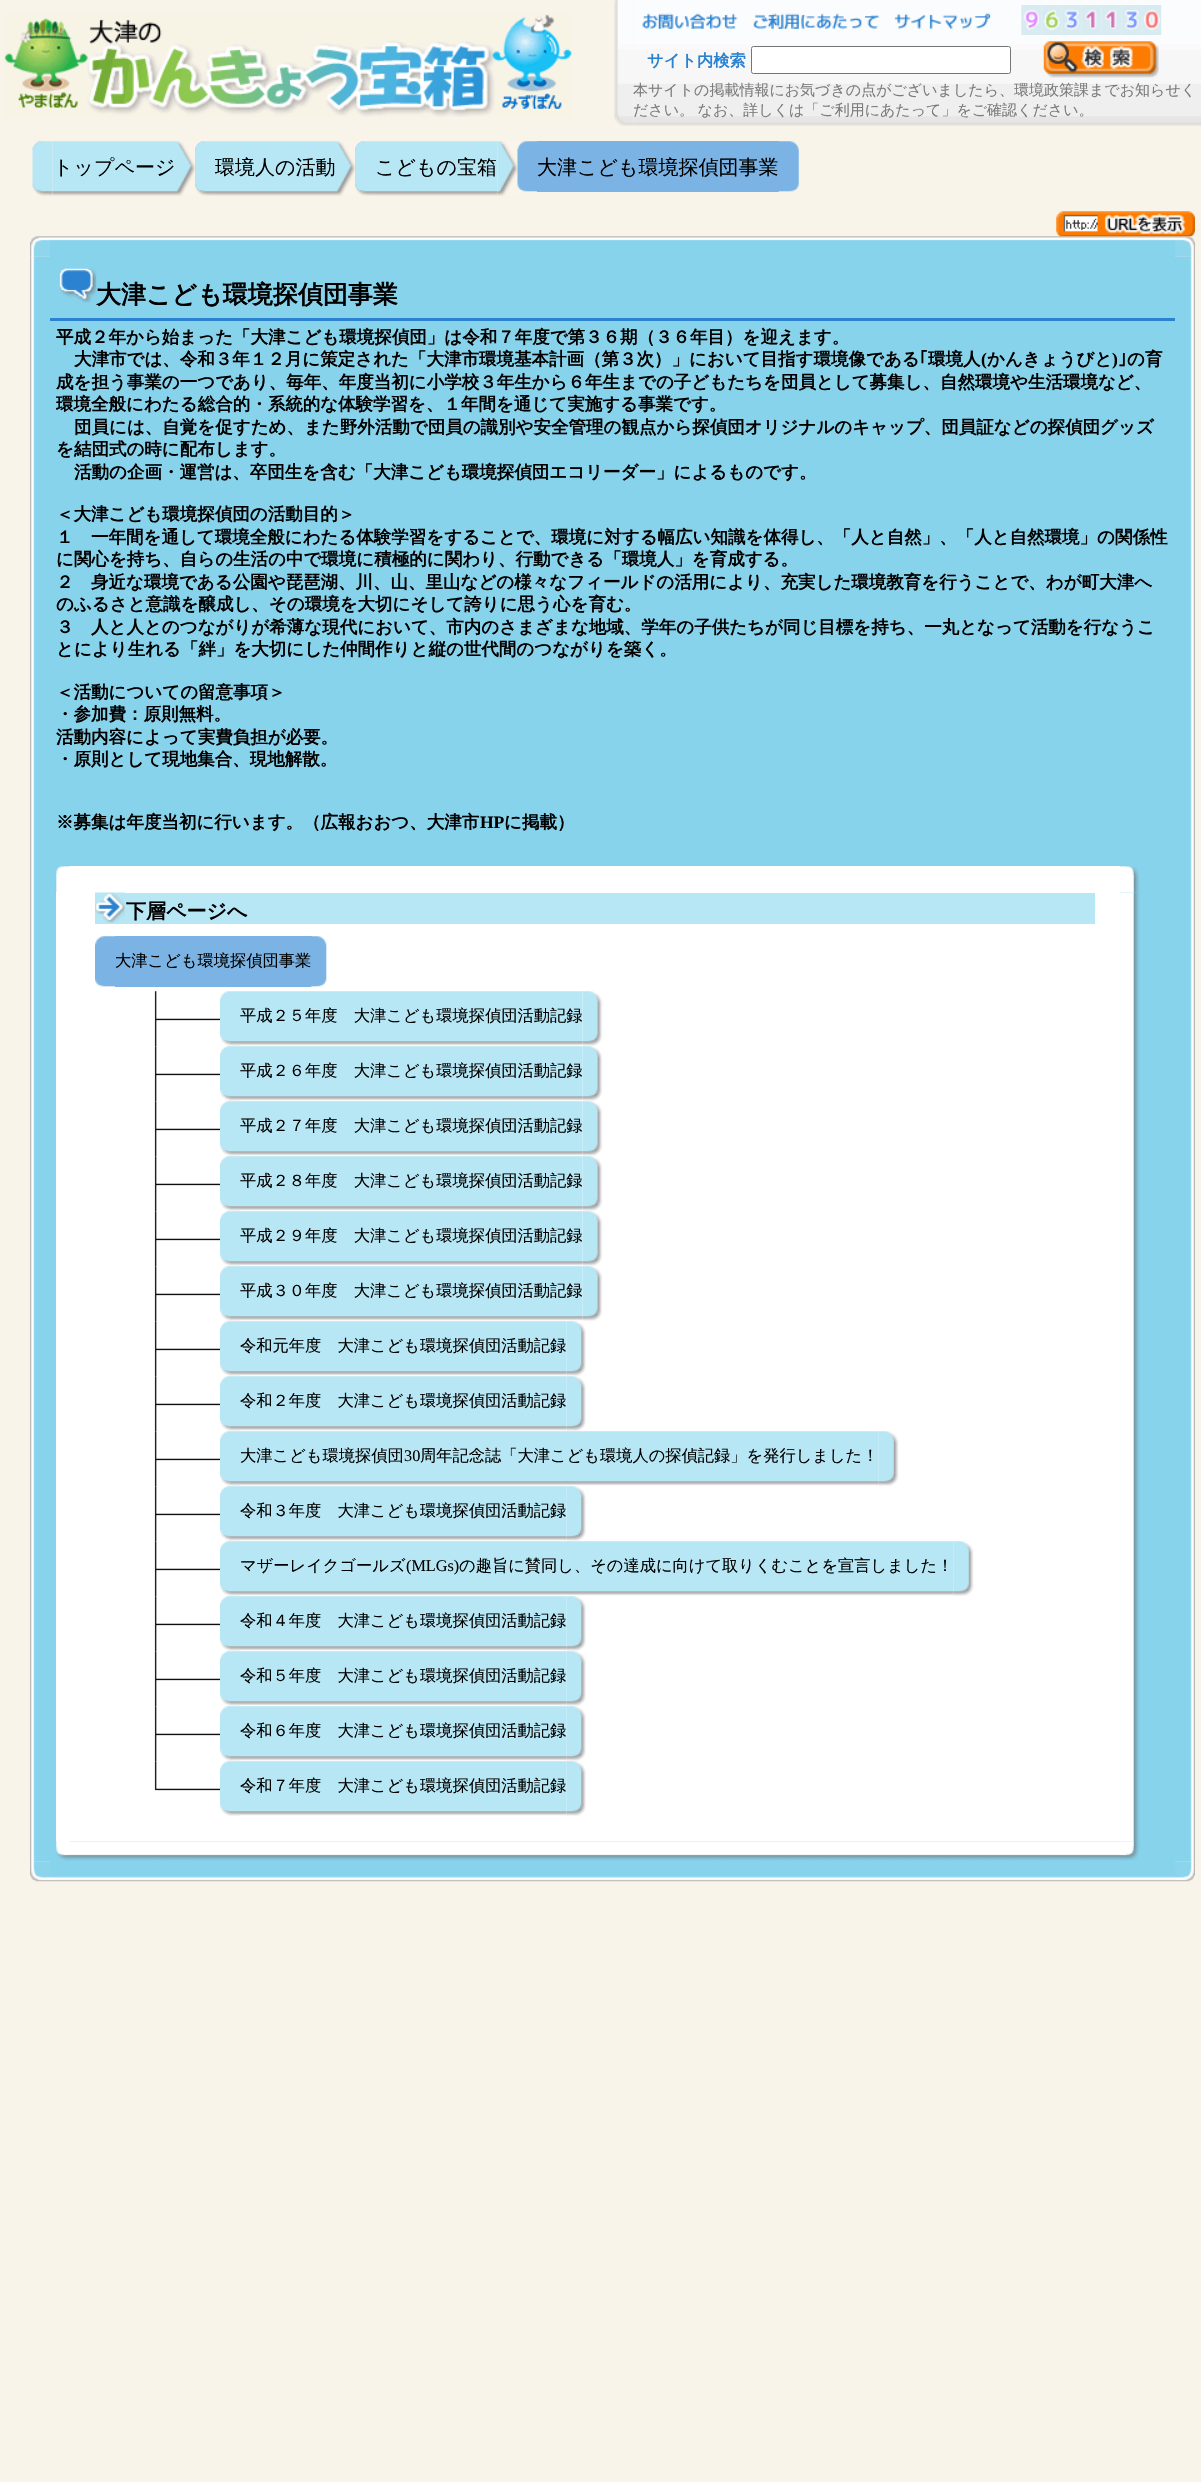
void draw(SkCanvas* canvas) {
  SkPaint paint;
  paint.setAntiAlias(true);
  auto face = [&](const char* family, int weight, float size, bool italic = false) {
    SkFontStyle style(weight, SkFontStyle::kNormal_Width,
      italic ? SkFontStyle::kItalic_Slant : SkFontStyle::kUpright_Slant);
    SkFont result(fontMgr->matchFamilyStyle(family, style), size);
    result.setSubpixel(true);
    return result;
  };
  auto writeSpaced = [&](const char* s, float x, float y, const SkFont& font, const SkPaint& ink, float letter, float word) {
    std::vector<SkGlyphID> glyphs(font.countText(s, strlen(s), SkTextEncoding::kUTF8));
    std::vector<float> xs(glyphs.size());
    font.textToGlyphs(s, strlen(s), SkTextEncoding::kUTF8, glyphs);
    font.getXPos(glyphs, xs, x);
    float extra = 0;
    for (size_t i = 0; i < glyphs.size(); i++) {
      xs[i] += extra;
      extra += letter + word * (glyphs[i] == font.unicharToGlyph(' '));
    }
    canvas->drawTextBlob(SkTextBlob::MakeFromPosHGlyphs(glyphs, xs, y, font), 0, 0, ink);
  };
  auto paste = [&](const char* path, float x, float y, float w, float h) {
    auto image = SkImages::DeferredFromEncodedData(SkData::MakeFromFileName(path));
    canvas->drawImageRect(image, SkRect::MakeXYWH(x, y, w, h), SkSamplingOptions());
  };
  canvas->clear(0xfff9f4e9);
  paste("img/1.png", 4, 14, 568, 103);
  paste("img/2.png", 614, 0, 20, 126);
  paste("img/3.png", 634, 0, 567, 126);
  paste("img/4.png", 642, 13, 96, 16);
  paste("img/5.png", 753, 13, 126, 16);
  paste("img/6.png", 894, 13, 97, 16);
  paste("img/7.png", 1021, 5, 21, 30);
  paste("img/8.png", 1041, 5, 21, 30);
  paste("img/9.png", 1061, 5, 21, 30);
  paste("img/10.png", 1081, 5, 21, 30);
  paste("img/10.png", 1101, 5, 21, 30);
  paste("img/9.png", 1121, 5, 21, 30);
  paste("img/11.png", 1141, 5, 21, 30);
  paint.setColor(0xffffffff);
  canvas->drawRoundRect(SkRect::MakeXYWH(751.5f, 46.5f, 259, 27), 2, 2, paint);
  paint.setStroke(true);
  paint.setStrokeWidth(1);
  paint.setColor(0xff767676);
  canvas->drawRoundRect(SkRect::MakeXYWH(751.5f, 46.5f, 259, 27), 2, 2, paint);
  paste("img/12.png", 1043, 41, 116, 37);
  paste("img/13.png", 32, 141, 21, 55);
  paste("img/14.png", 52, 141, 123, 55);
  paste("img/15.png", 175, 141, 20, 55);
  paste("img/16.png", 195, 141, 20, 55);
  paste("img/17.png", 215, 141, 120, 55);
  paste("img/15.png", 335, 141, 20, 55);
  paste("img/16.png", 355, 141, 20, 55);
  paste("img/18.png", 375, 141, 123, 55);
  paste("img/19.png", 497, 141, 21, 55);
  paste("img/20.png", 517, 141, 20, 51);
  paint.setStroke(false);
  paint.setColor(0xff7ab3e4);
  canvas->drawRect(SkRect::MakeXYWH(537, 141, 242, 51), paint);
  paste("img/21.png", 778, 141, 21, 51);
  paste("img/24.png", 50, 236, 1125, 20);
  paste("img/25.png", 1175, 236, 20, 21);
  paste("img/22.png", 1056, 211, 139, 26);
  paste("img/23.png", 30, 236, 20, 21);
  paste("img/26.png", 30, 256, 20, 1606);
  paint.setColor(0xff88d3ec);
  canvas->drawRect(SkRect::MakeXYWH(50, 256, 1125, 1606), paint);
  paste("img/27.png", 59, 268, 38, 35);
  paint.setColor(0xff2b82d0);
  canvas->drawRect(SkRect::MakeXYWH(50, 318, 1125, 3), paint);
  paste("img/28.png", 55, 865, 15, 15);
  paint.setColor(0xffffffff);
  canvas->drawRect(SkRect::MakeXYWH(70, 866, 1050, 975), paint);
  paste("img/29.png", 1120, 865, 20, 15);
  paste("img/30.png", 55, 880, 15, 13);
  paste("img/31.png", 1120, 880, 20, 13);
  canvas->drawRect(SkRect::MakeXYWH(56, 892, 14, 950), paint);
  paint.setColor(0xffb7e6f4);
  canvas->drawRect(SkRect::MakeXYWH(95, 893, 1000, 31), paint);
  paste("img/32.png", 95, 892, 30, 31);
  paste("img/33.png", 95, 936, 20, 51);
  paint.setColor(0xff7ab3e4);
  canvas->drawRect(SkRect::MakeXYWH(115, 936, 197, 51), paint);
  paste("img/34.png", 311, 936, 16, 51);
  paste("img/35.png", 154, 991, 66, 56);
  paste("img/36.png", 220, 991, 20, 55);
  paste("img/37.png", 240, 991, 343, 55);
  paste("img/38.png", 582, 991, 21, 55);
  paste("img/39.png", 154, 1046, 66, 56);
  paste("img/36.png", 220, 1046, 20, 55);
  paste("img/37.png", 240, 1046, 343, 55);
  paste("img/38.png", 582, 1046, 21, 55);
  paste("img/39.png", 154, 1101, 66, 56);
  paste("img/36.png", 220, 1101, 20, 55);
  paste("img/37.png", 240, 1101, 343, 55);
  paste("img/38.png", 582, 1101, 21, 55);
  paste("img/39.png", 154, 1156, 66, 56);
  paste("img/40.png", 220, 1156, 20, 55);
  paste("img/41.png", 240, 1156, 343, 55);
  paste("img/42.png", 582, 1156, 21, 55);
  paste("img/39.png", 154, 1211, 66, 56);
  paste("img/36.png", 220, 1211, 20, 55);
  paste("img/37.png", 240, 1211, 343, 55);
  paste("img/38.png", 582, 1211, 21, 55);
  paste("img/39.png", 154, 1266, 66, 56);
  paste("img/36.png", 220, 1266, 20, 55);
  paste("img/37.png", 240, 1266, 343, 55);
  paste("img/38.png", 582, 1266, 21, 55);
  paste("img/39.png", 154, 1321, 66, 56);
  paste("img/36.png", 220, 1321, 20, 55);
  paste("img/43.png", 240, 1321, 327, 55);
  paste("img/44.png", 566, 1321, 20, 55);
  paste("img/39.png", 154, 1376, 66, 56);
  paste("img/36.png", 220, 1376, 20, 55);
  paste("img/43.png", 240, 1376, 327, 55);
  paste("img/44.png", 566, 1376, 20, 55);
  paste("img/39.png", 154, 1431, 66, 56);
  paste("img/36.png", 220, 1431, 20, 55);
  paste("img/45.png", 240, 1431, 639, 55);
  paste("img/46.png", 878, 1431, 21, 55);
  paste("img/39.png", 154, 1486, 66, 56);
  paste("img/36.png", 220, 1486, 20, 55);
  paste("img/43.png", 240, 1486, 327, 55);
  paste("img/44.png", 566, 1486, 20, 55);
  paste("img/39.png", 154, 1541, 66, 56);
  paste("img/36.png", 220, 1541, 20, 55);
  paste("img/47.png", 240, 1541, 714, 55);
  paste("img/46.png", 953, 1541, 21, 55);
  paste("img/39.png", 154, 1596, 66, 56);
  paste("img/36.png", 220, 1596, 20, 55);
  paste("img/43.png", 240, 1596, 327, 55);
  paste("img/44.png", 566, 1596, 20, 55);
  paste("img/39.png", 154, 1651, 66, 56);
  paste("img/36.png", 220, 1651, 20, 55);
  paste("img/43.png", 240, 1651, 327, 55);
  paste("img/44.png", 566, 1651, 20, 55);
  paste("img/39.png", 154, 1706, 66, 56);
  paste("img/36.png", 220, 1706, 20, 55);
  paste("img/43.png", 240, 1706, 327, 55);
  paste("img/44.png", 566, 1706, 20, 55);
  paste("img/48.png", 154, 1761, 66, 30);
  paste("img/36.png", 220, 1761, 20, 55);
  paste("img/43.png", 240, 1761, 327, 55);
  paste("img/44.png", 566, 1761, 20, 55);
  paste("img/49.png", 1120, 892, 20, 950);
  paste("img/50.png", 56, 1841, 14, 20);
  paste("img/51.png", 70, 1841, 1050, 20);
  paste("img/52.png", 1120, 1841, 20, 20);
  paste("img/53.png", 1175, 256, 20, 1606);
  paste("img/54.png", 30, 1861, 20, 21);
  paste("img/55.png", 50, 1862, 1125, 20);
  paste("img/56.png", 1175, 1861, 20, 21);
  auto f0 = face("WenQuanYi Zen Hei", 700, 16.25f);
  paint.setColor(0xff2b82d0);
  canvas->drawString("サイト内検索", 647, 66, f0, paint);
  auto f1 = face("WenQuanYi Zen Hei", 500, 15);
  paint.setColor(0xff7b7b7b);
  canvas->drawString("本サイトの掲載情報にお気づきの点がございましたら、環境政策課までお知らせく", 633, 95, f1, paint);
  writeSpaced("ださい。 なお、詳しくは「ご利用にあたって」をご確認ください。", 633, 115, f1, paint, 0, -1);
  auto f2 = face("WenQuanYi Zen Hei", 500, 20);
  paint.setColor(0xff000000);
  {
    const struct { const char* s; float x, y; } items[] = {
      {"トップページ", 53, 174},
      {"環境人の活動", 215, 174},
      {"こどもの宝箱", 375, 174},
      {"大津こども環境探偵団事業", 537, 174},
    };
    for (auto [s, x, y] : items) {
      canvas->drawString(s, x, y, f2, paint);
    }
  }
  auto f3 = face("WenQuanYi Zen Hei", 700, 25);
  canvas->drawString("大津こども環境探偵団事業", 96, 303, f3, paint);
  auto f4 = face("WenQuanYi Zen Hei", 700, 17.5f);
  canvas->drawString("平成２年から始まった「大津こども環境探偵団」は令和７年度で第３６期（３６年目）を迎えます。", 56, 343, f4, paint);
  canvas->drawString("大津市では、令和３年１２月に策定された「大津市環境基本計画（第３次）」において目指す環境像である", 74, 365, f4, paint);
  auto f5 = face("IPAPGothic", 700, 17.5f);
  canvas->drawString("｢", 919, 365, f5, paint);
  canvas->drawString("環境人", 928, 365, f4, paint);
  auto f6 = face("Liberation Serif", 700, 17.5f);
  canvas->drawString("(", 981, 365, f6, paint);
  canvas->drawString("かんきょうびと", 987, 365, f4, paint);
  canvas->drawString(")", 1112, 365, f6, paint);
  canvas->drawString("｣", 1118, 365, f5, paint);
  {
    const struct { const char* s; float x, y; } items[] = {
      {"の育", 1127, 365},
      {"成を担う事業の一つであり、毎年、年度当初に小学校３年生から６年生までの子どもたちを団員として募集し、自然環境や生活環境など、", 56, 388},
      {"環境全般にわたる総合的・系統的な体験学習を、１年間を通じて実施する事業です。", 56, 410},
      {"団員には、自覚を促すため、また野外活動で団員の識別や安全管理の観点から探偵団オリジナルのキャップ、団員証などの探偵団グッズ", 74, 433},
      {"を結団式の時に配布します。", 56, 455},
      {"活動の企画・運営は、卒団生を含む「大津こども環境探偵団エコリーダー」によるものです。", 74, 478},
      {"＜大津こども環境探偵団の活動目的＞", 56, 520},
      {"１　一年間を通して環境全般にわたる体験学習をすることで、環境に対する幅広い知識を体得し、「人と自然」、「人と自然環境」の関係性", 56, 543},
      {"に関心を持ち、自らの生活の中で環境に積極的に関わり、行動できる「環境人」を育成する。", 56, 565},
      {"２　身近な環境である公園や琵琶湖、川、山、里山などの様々なフィールドの活用により、充実した環境教育を行うことで、わが町大津へ", 56, 588},
      {"のふるさと意識を醸成し、その環境を大切にそして誇りに思う心を育む。", 56, 610},
      {"３　人と人とのつながりが希薄な現代において、市内のさまざまな地域、学年の子供たちが同じ目標を持ち、一丸となって活動を行なうこ", 56, 633},
      {"とにより生れる「絆」を大切にした仲間作りと縦の世代間のつながりを築く。", 56, 655},
      {"＜活動についての留意事項＞", 56, 698},
      {"・参加費：原則無料。", 56, 720},
      {"活動内容によって実費負担が必要。", 56, 743},
      {"・原則として現地集合、現地解散。", 56, 765},
      {"※募集は年度当初に行います。（広報おおつ、大津市", 56, 828},
    };
    for (auto [s, x, y] : items) {
      canvas->drawString(s, x, y, f4, paint);
    }
  }
  canvas->drawString("HP", 480, 828, f6, paint);
  canvas->drawString("に掲載）", 504, 828, f4, paint);
  auto f7 = face("WenQuanYi Zen Hei", 700, 20);
  canvas->drawString("下層ページへ", 126, 918, f7, paint);
  auto f8 = face("WenQuanYi Zen Hei", 500, 16.25f);
  {
    const struct { const char* s; float x, y; } items[] = {
      {"大津こども環境探偵団事業", 115, 966},
      {"平成２５年度　大津こども環境探偵団活動記録", 240, 1021},
      {"平成２６年度　大津こども環境探偵団活動記録", 240, 1076},
      {"平成２７年度　大津こども環境探偵団活動記録", 240, 1131},
      {"平成２８年度　大津こども環境探偵団活動記録", 240, 1186},
      {"平成２９年度　大津こども環境探偵団活動記録", 240, 1241},
      {"平成３０年度　大津こども環境探偵団活動記録", 240, 1296},
      {"令和元年度　大津こども環境探偵団活動記録", 240, 1351},
      {"令和２年度　大津こども環境探偵団活動記録", 240, 1406},
      {"大津こども環境探偵団", 240, 1461},
    };
    for (auto [s, x, y] : items) {
      canvas->drawString(s, x, y, f8, paint);
    }
  }
  auto f9 = face("Liberation Serif", 400, 16.25f);
  canvas->drawString("30", 404, 1461, f9, paint);
  {
    const struct { const char* s; float x, y; } items[] = {
      {"周年記念誌「大津こども環境人の探偵記録」を発行しました！", 420, 1461},
      {"令和３年度　大津こども環境探偵団活動記録", 240, 1516},
      {"マザーレイクゴールズ", 240, 1571},
    };
    for (auto [s, x, y] : items) {
      canvas->drawString(s, x, y, f8, paint);
    }
  }
  canvas->drawString("(MLGs)", 406, 1571, f9, paint);
  {
    const struct { const char* s; float x, y; } items[] = {
      {"の趣旨に賛同し、その達成に向けて取りくむことを宣言しました！", 459, 1571},
      {"令和４年度　大津こども環境探偵団活動記録", 240, 1626},
      {"令和５年度　大津こども環境探偵団活動記録", 240, 1681},
      {"令和６年度　大津こども環境探偵団活動記録", 240, 1736},
      {"令和７年度　大津こども環境探偵団活動記録", 240, 1791},
    };
    for (auto [s, x, y] : items) {
      canvas->drawString(s, x, y, f8, paint);
    }
  }
}
